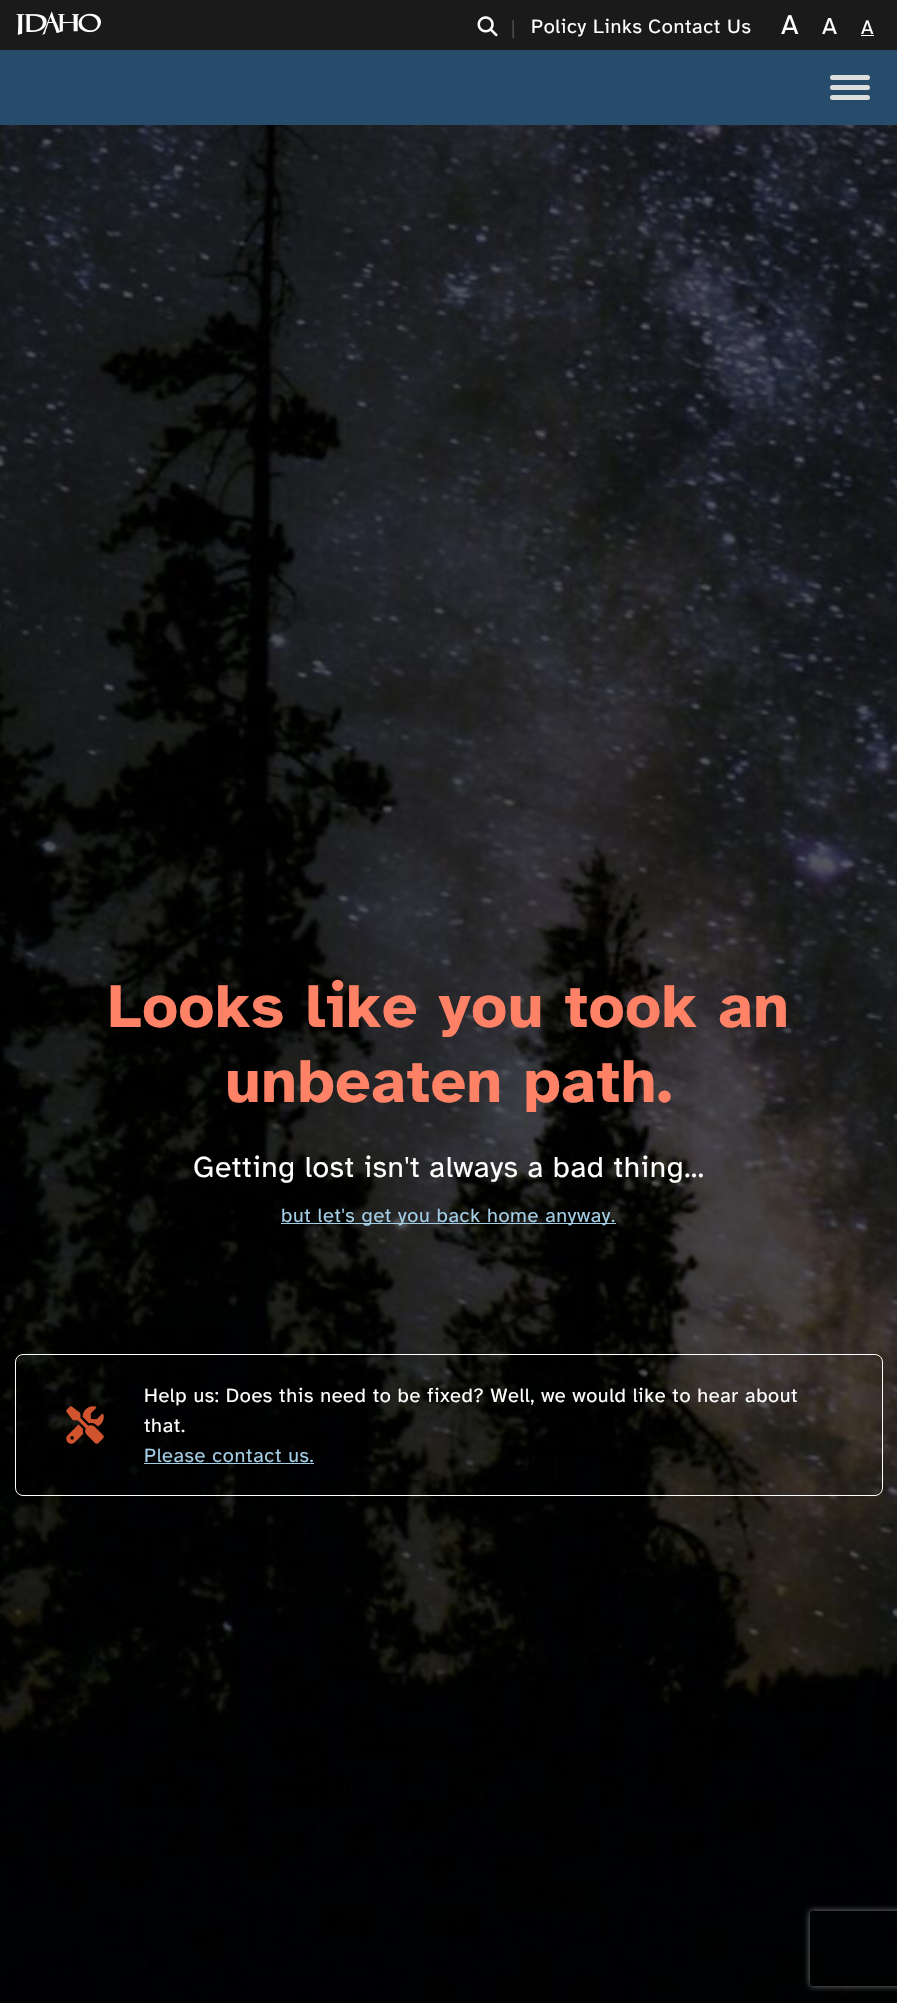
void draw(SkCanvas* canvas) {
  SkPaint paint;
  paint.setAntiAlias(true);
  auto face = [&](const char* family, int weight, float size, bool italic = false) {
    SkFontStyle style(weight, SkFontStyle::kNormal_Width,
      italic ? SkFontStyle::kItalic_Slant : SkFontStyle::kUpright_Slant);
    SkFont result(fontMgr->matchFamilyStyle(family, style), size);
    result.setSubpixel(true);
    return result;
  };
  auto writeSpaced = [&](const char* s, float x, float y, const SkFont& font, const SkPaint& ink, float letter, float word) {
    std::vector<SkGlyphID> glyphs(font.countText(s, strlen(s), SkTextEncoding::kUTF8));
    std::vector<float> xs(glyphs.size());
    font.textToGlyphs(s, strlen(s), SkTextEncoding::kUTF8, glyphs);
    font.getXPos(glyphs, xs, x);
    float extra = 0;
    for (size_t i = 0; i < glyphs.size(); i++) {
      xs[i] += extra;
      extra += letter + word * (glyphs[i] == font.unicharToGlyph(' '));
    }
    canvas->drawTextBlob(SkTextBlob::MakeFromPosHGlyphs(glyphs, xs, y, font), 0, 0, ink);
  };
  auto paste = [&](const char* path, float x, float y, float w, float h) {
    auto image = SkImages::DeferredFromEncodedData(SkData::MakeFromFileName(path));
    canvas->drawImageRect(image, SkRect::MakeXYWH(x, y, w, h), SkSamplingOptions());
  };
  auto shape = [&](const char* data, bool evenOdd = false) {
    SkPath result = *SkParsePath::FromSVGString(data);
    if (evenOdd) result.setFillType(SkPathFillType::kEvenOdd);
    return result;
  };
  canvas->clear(0xff264b6b);
  paint.setColor(0xff1a1a1a);
  canvas->drawRect(SkRect::MakeXYWH(0, 0, 897, 50), paint);
  paste("img/1.png", 16, 11, 85, 24);
  paste("img/2.png", 477, 16, 21, 21);
  paint.setColor(0xffffffff);
  canvas->drawRect(SkRect::MakeXYWH(861, 35, 13, 1), paint);
  paint.setColor(0xffdddddd);
  canvas->drawRoundRect(SkRect::MakeXYWH(830, 75, 40, 5), 2.5f, 2.5f, paint);
  canvas->drawRoundRect(SkRect::MakeXYWH(830, 85, 40, 5), 2.5f, 2.5f, paint);
  canvas->drawRoundRect(SkRect::MakeXYWH(830, 95, 40, 5), 2.5f, 2.5f, paint);
  paste("img/3.png", 0, 125, 897, 1878);
  paint.setColor(0xffa3cee6);
  canvas->drawRect(SkRect::MakeXYWH(281, 1223, 335, 1), paint);
  paint.setStroke(true);
  paint.setStrokeWidth(1);
  paint.setColor(0xffffffff);
  canvas->drawRoundRect(SkRect::MakeXYWH(15.5f, 1354.5f, 867, 141), 7.5f, 7.5f, paint);
  paste("img/4.png", 66, 1406, 38, 38);
  paint.setStroke(false);
  paint.setColor(0xffa3cee6);
  canvas->drawRect(SkRect::MakeXYWH(144, 1463, 170, 1), paint);
  canvas->save();
  canvas->clipPath(shape("M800 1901H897V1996H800ZM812.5 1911H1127.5C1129 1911 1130 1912 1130 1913.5V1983.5C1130 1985 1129 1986 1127.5 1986H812.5C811 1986 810 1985 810 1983.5V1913.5C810 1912 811 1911 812.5 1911Z", true), true);
  paint.setColor(0xff808080);
  paint.setMaskFilter(SkMaskFilter::MakeBlur(kNormal_SkBlurStyle, 3));
  canvas->drawRoundRect(SkRect::MakeXYWH(810, 1911, 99, 75), 2.5f, 2.5f, paint);
  paint.setMaskFilter(nullptr);
  canvas->restore();
  auto f0 = face("Liberation Serif", 700, 20);
  paint.setColor(0xff4d4d4d);
  writeSpaced("|", 511, 34, f0, paint, 0.62f, 0);
  auto f1 = face("Atkinson Hyperlegible", 400, 20);
  paint.setColor(0xffffffff);
  writeSpaced("Policy Links", 531, 33, f1, paint, 0.62f, 0);
  writeSpaced("Contact Us", 648, 33, f1, paint, 0.62f, 0);
  auto f2 = face("Atkinson Hyperlegible", 400, 28);
  canvas->drawString("A", 781, 34, f2, paint);
  auto f3 = face("Atkinson Hyperlegible", 400, 24);
  canvas->drawString("A", 822, 34, f3, paint);
  canvas->drawString("A", 861, 34, f1, paint);
  auto f4 = face("Atkinson Hyperlegible", 700, 62.4f);
  paint.setColor(0xffff8266);
  writeSpaced("Looks like you took an", 108, 1027, f4, paint, 0.62f, 0);
  writeSpaced("unbeaten path.", 225, 1102, f4, paint, 0.62f, 0);
  auto f5 = face("Atkinson Hyperlegible", 400, 30);
  paint.setColor(0xffffffff);
  writeSpaced("Getting lost isn't always a bad thing...", 193, 1177, f5, paint, 0.62f, 0);
  paint.setColor(0xffa3cee6);
  writeSpaced("but let's get you back home anyway.", 281, 1222, f1, paint, 0.62f, 0);
  paint.setColor(0xffffffff);
  writeSpaced("Help us: Does this need to be fixed? Well, we would like to hear about", 144, 1402, f1, paint, 0.62f, 0);
  writeSpaced("that.", 144, 1432, f1, paint, 0.62f, 0);
  paint.setColor(0xffa3cee6);
  writeSpaced("Please contact us.", 144, 1462, f1, paint, 0.62f, 0);
}
